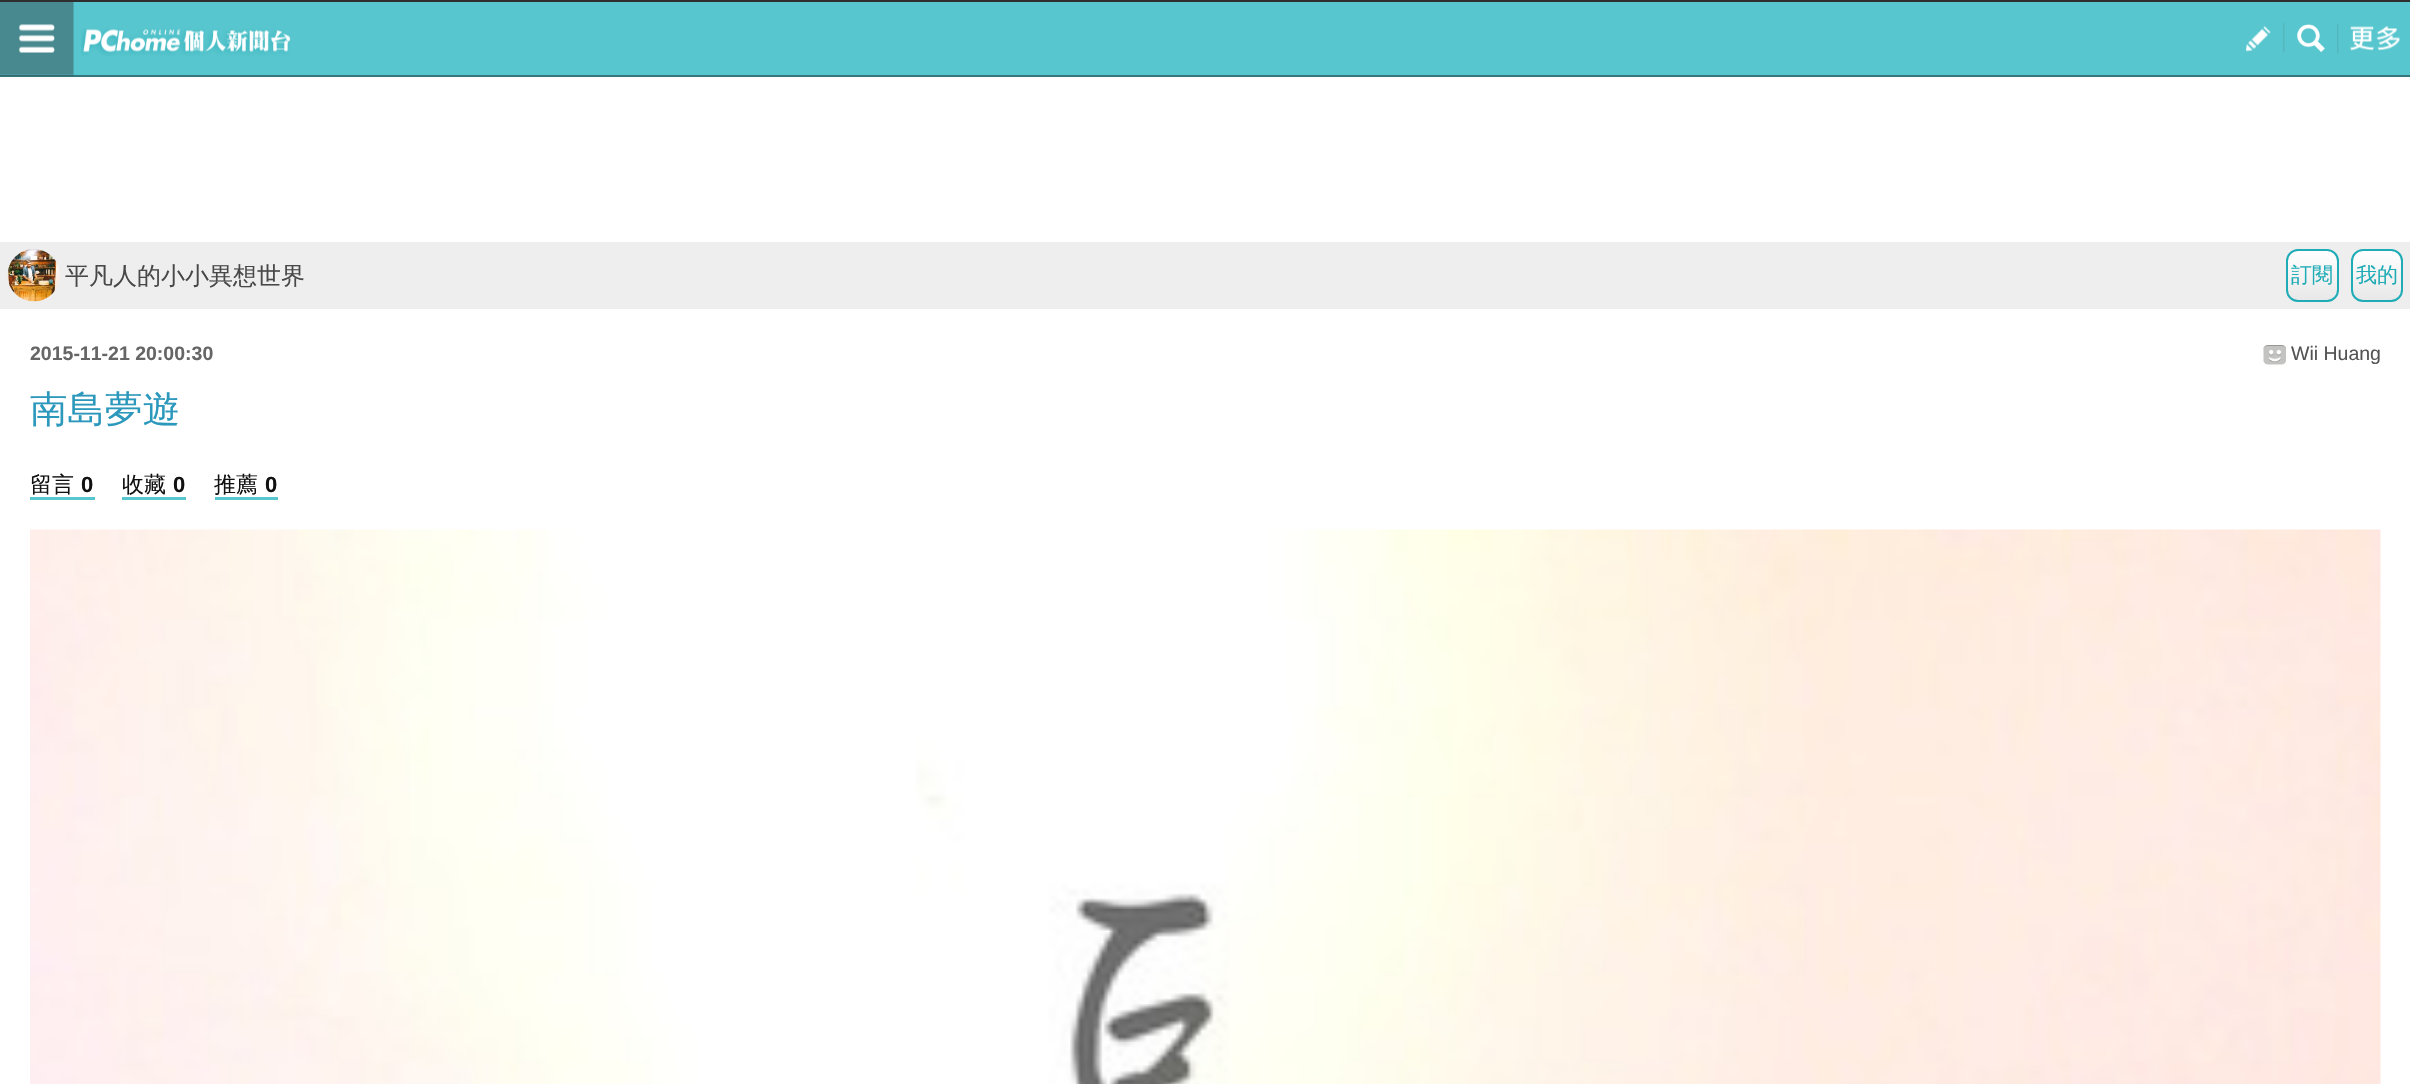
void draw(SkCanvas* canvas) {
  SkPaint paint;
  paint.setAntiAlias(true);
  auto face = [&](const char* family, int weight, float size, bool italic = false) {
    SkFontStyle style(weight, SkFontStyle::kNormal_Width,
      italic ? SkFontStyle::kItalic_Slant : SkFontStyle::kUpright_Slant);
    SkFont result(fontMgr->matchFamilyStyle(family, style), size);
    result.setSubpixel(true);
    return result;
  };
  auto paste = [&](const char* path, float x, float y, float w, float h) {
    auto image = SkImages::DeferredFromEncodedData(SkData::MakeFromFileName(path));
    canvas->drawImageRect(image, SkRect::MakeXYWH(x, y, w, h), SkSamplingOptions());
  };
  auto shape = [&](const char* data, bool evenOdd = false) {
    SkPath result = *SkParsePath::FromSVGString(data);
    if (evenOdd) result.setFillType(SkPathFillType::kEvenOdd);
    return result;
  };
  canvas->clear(0xffffffff);
  {
    const struct { float x, y, w, h; SkColor color; } items[] = {
      {0, 2, 2410, 73, 0xff58c6ce},
      {0, 0, 2410, 2, 0xff2f2f2f},
      {0, 75, 2410, 2, 0xff34787d},
    };
    for (auto [x, y, w, h, color] : items) {
      paint.setColor(color);
      canvas->drawRect(SkRect::MakeXYWH(x, y, w, h), paint);
    }
  }
  paste("img/1.png", 0, 2, 74, 74);
  paste("img/2.png", 81, 28, 210, 28);
  paste("img/3.png", 2245, 23, 40, 30);
  paste("img/4.png", 2297, 24, 28, 29);
  paste("img/5.png", 2337, 24, 63, 30);
  paint.setColor(0xffeeeeee);
  canvas->drawRect(SkRect::MakeXYWH(0, 242, 2410, 67), paint);
  paste("img/6.png", 7, 249, 53, 53);
  canvas->save();
  canvas->clipPath(shape("M2298 249H2327C2333.5 249 2339 254.5 2339 261V290C2339 296.5 2333.5 302 2327 302H2298C2291.5 302 2286 296.5 2286 290V261C2286 254.5 2291.5 249 2298 249Z"), true);
  {
    const SkColor colors[] = {0xffffffff, 0xffe8e8e8};
    const float stops[] = {0, 1};
    const SkPoint ends[] = {{2312, 251}, {2312, 300}};
    paint.setShader(SkGradientShader::MakeLinear(ends, colors, stops, 2, SkTileMode::kClamp));
    paint.setAlpha(255);
  }
  canvas->drawRect(SkRect::MakeXYWH(2286, 251, 53, 49), paint);
  canvas->restore();
  paint.setStroke(true);
  paint.setStrokeWidth(2);
  paint.setShader(nullptr);
  paint.setColor(0xff1facb6);
  canvas->drawRoundRect(SkRect::MakeXYWH(2287, 250, 51, 51), 11, 11, paint);
  canvas->save();
  canvas->clipPath(shape("M2363 249H2391C2397.5 249 2403 254.5 2403 261V290C2403 296.5 2397.5 302 2391 302H2363C2356.5 302 2351 296.5 2351 290V261C2351 254.5 2356.5 249 2363 249Z"), true);
  paint.setStroke(false);
  {
    const SkColor colors[] = {0xffffffff, 0xffe8e8e8};
    const float stops[] = {0, 1};
    const SkPoint ends[] = {{2377, 251}, {2377, 300}};
    paint.setShader(SkGradientShader::MakeLinear(ends, colors, stops, 2, SkTileMode::kClamp));
    paint.setAlpha(255);
  }
  canvas->drawRect(SkRect::MakeXYWH(2351, 251, 52, 49), paint);
  canvas->restore();
  paint.setStroke(true);
  paint.setShader(nullptr);
  paint.setColor(0xff1facb6);
  canvas->drawRoundRect(SkRect::MakeXYWH(2352, 250, 50, 51), 11, 11, paint);
  paste("img/7.png", 2263, 345, 23, 20);
  paint.setStroke(false);
  {
    const struct { float x, y, w, h; SkColor color; } items[] = {
      {30, 497, 65, 3, 0xff58c6ce},
      {122, 497, 64, 3, 0xff58c6ce},
      {215, 497, 63, 3, 0xff58c6ce},
    };
    for (auto [x, y, w, h, color] : items) {
      paint.setColor(color);
      canvas->drawRect(SkRect::MakeXYWH(x, y, w, h), paint);
    }
  }
  paste("img/8.png", 30, 529, 2351, 555);
  auto f0 = face("WenQuanYi Zen Hei", 500, 24);
  paint.setColor(0xff484848);
  canvas->drawString("平凡人的小小異想世界", 65, 284, f0, paint);
  auto f1 = face("WenQuanYi Zen Hei", 500, 21);
  paint.setColor(0xff1facb6);
  canvas->drawString("訂閱", 2291, 282, f1, paint);
  canvas->drawString("我的", 2356, 282, f1, paint);
  auto f2 = face("Liberation Sans", 700, 19.5f);
  paint.setColor(0xff666666);
  canvas->drawString("2015-11-21 20:00:30", 30, 360, f2, paint);
  auto f3 = face("Liberation Sans", 400, 19.5f);
  paint.setColor(0xff535353);
  canvas->drawString("Wii Huang", 2291, 360, f3, paint);
  auto f4 = face("WenQuanYi Zen Hei", 500, 37.5f);
  paint.setColor(0xff2c99bc);
  canvas->drawString("南島夢遊", 30, 422, f4, paint);
  auto f5 = face("WenQuanYi Zen Hei", 500, 22);
  paint.setColor(0xff111111);
  canvas->drawString("留言", 30, 492, f5, paint);
  auto f6 = face("Liberation Sans", 700, 22);
  canvas->drawString("0", 81, 492, f6, paint);
  canvas->drawString("收藏", 122, 492, f5, paint);
  canvas->drawString("0", 173, 492, f6, paint);
  canvas->drawString("推薦", 214, 492, f5, paint);
  canvas->drawString("0", 265, 492, f6, paint);
}
